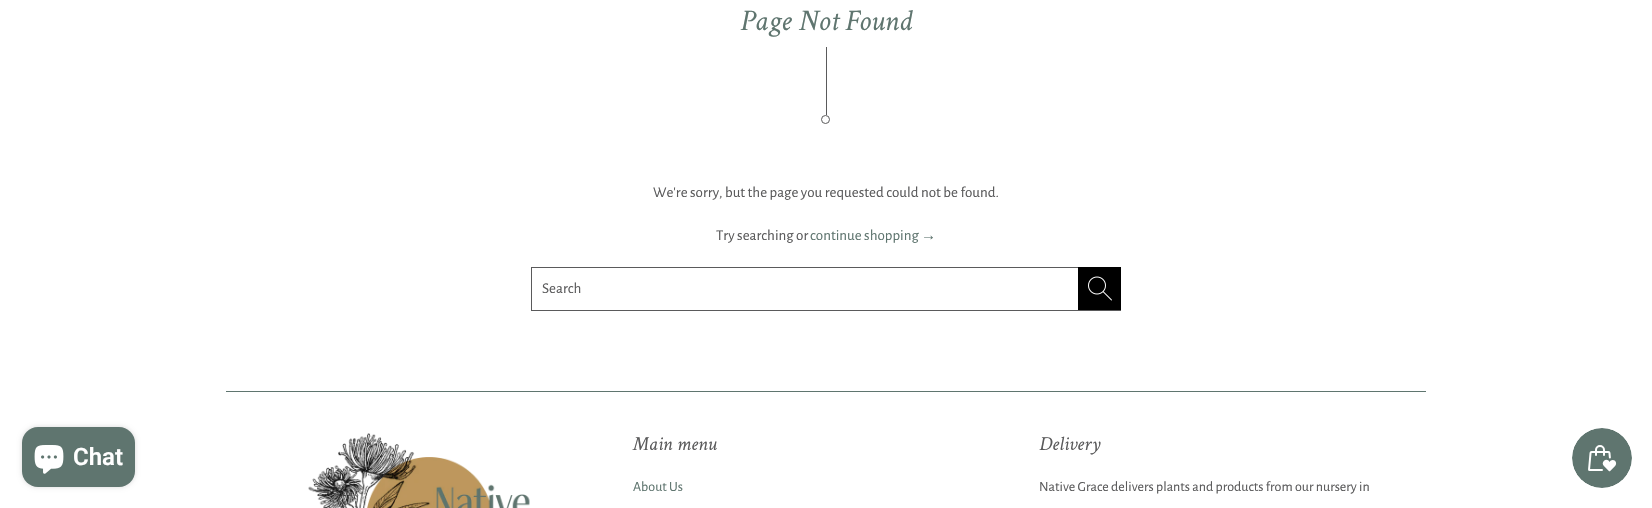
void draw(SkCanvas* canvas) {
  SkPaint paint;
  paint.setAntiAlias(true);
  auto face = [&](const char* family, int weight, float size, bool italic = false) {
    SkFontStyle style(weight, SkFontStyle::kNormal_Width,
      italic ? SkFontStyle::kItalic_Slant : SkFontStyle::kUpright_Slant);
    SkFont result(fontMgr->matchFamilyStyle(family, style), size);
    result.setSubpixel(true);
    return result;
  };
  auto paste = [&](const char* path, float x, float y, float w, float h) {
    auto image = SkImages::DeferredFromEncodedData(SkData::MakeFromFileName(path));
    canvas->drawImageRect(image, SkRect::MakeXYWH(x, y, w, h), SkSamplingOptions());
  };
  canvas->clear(0xffffffff);
  paint.setColor(0x26000000);
  paint.setMaskFilter(SkMaskFilter::MakeBlur(kNormal_SkBlurStyle, 2.5f));
  canvas->drawRoundRect(SkRect::MakeXYWH(22, 427, 113, 60), 16, 16, paint);
  paint.setMaskFilter(nullptr);
  paint.setColor(0xff5f756f);
  canvas->drawRoundRect(SkRect::MakeXYWH(22, 427, 113, 60), 16, 16, paint);
  paste("img/1.png", 34, 445, 30, 29);
  paint.setColor(0xff5a5a5b);
  canvas->drawRect(SkRect::MakeXYWH(826, 47, 1, 68), paint);
  paint.setStroke(true);
  paint.setStrokeWidth(1);
  canvas->drawCircle(825.5f, 119.5f, 4, paint);
  canvas->drawRect(SkRect::MakeXYWH(531.5f, 267.5f, 589, 43), paint);
  paint.setStroke(false);
  paint.setColor(0xff000000);
  canvas->drawRect(SkRect::MakeXYWH(1078, 267, 43, 43), paint);
  paste("img/2.png", 1088, 276, 24, 25);
  paint.setColor(0xff5f756f);
  canvas->drawRect(SkRect::MakeXYWH(226, 391, 1200, 1), paint);
  paste("img/3.png", 308, 433, 222, 75);
  paste("img/4.png", 1572, 428, 60, 60);
  auto f0 = face("Roboto", 600, 24);
  paint.setColor(0xffffffff);
  canvas->drawString("Chat", 73, 465, f0, paint);
  auto f1 = face("Crimson Text", 400, 30, true);
  paint.setColor(0xff5f756f);
  canvas->drawString("Page Not Found", 740, 30, f1, paint);
  auto f2 = face("Alegreya Sans", 400, 15);
  paint.setColor(0xff5a5a5b);
  canvas->drawString("We're sorry, but the page you requested could not be found.", 653, 197, f2, paint);
  canvas->drawString("Try searching or", 716, 240, f2, paint);
  paint.setColor(0xff5f756f);
  canvas->drawString("continue shopping", 810, 240, f2, paint);
  auto f3 = face("Liberation Sans", 400, 15);
  canvas->drawString("→", 921, 240, f3, paint);
  paint.setColor(0xff5a5a5b);
  canvas->drawString("Search", 542, 293, f2, paint);
  auto f4 = face("Crimson Text", 400, 20, true);
  canvas->drawString("Main menu", 633, 450, f4, paint);
  auto f5 = face("Alegreya Sans", 400, 14);
  paint.setColor(0xff5f756f);
  canvas->drawString("About Us", 633, 491, f5, paint);
  paint.setColor(0xff5a5a5b);
  canvas->drawString("Delivery", 1039, 450, f4, paint);
  canvas->drawString("Native Grace delivers plants and products from our nursery in", 1039, 491, f5, paint);
}
